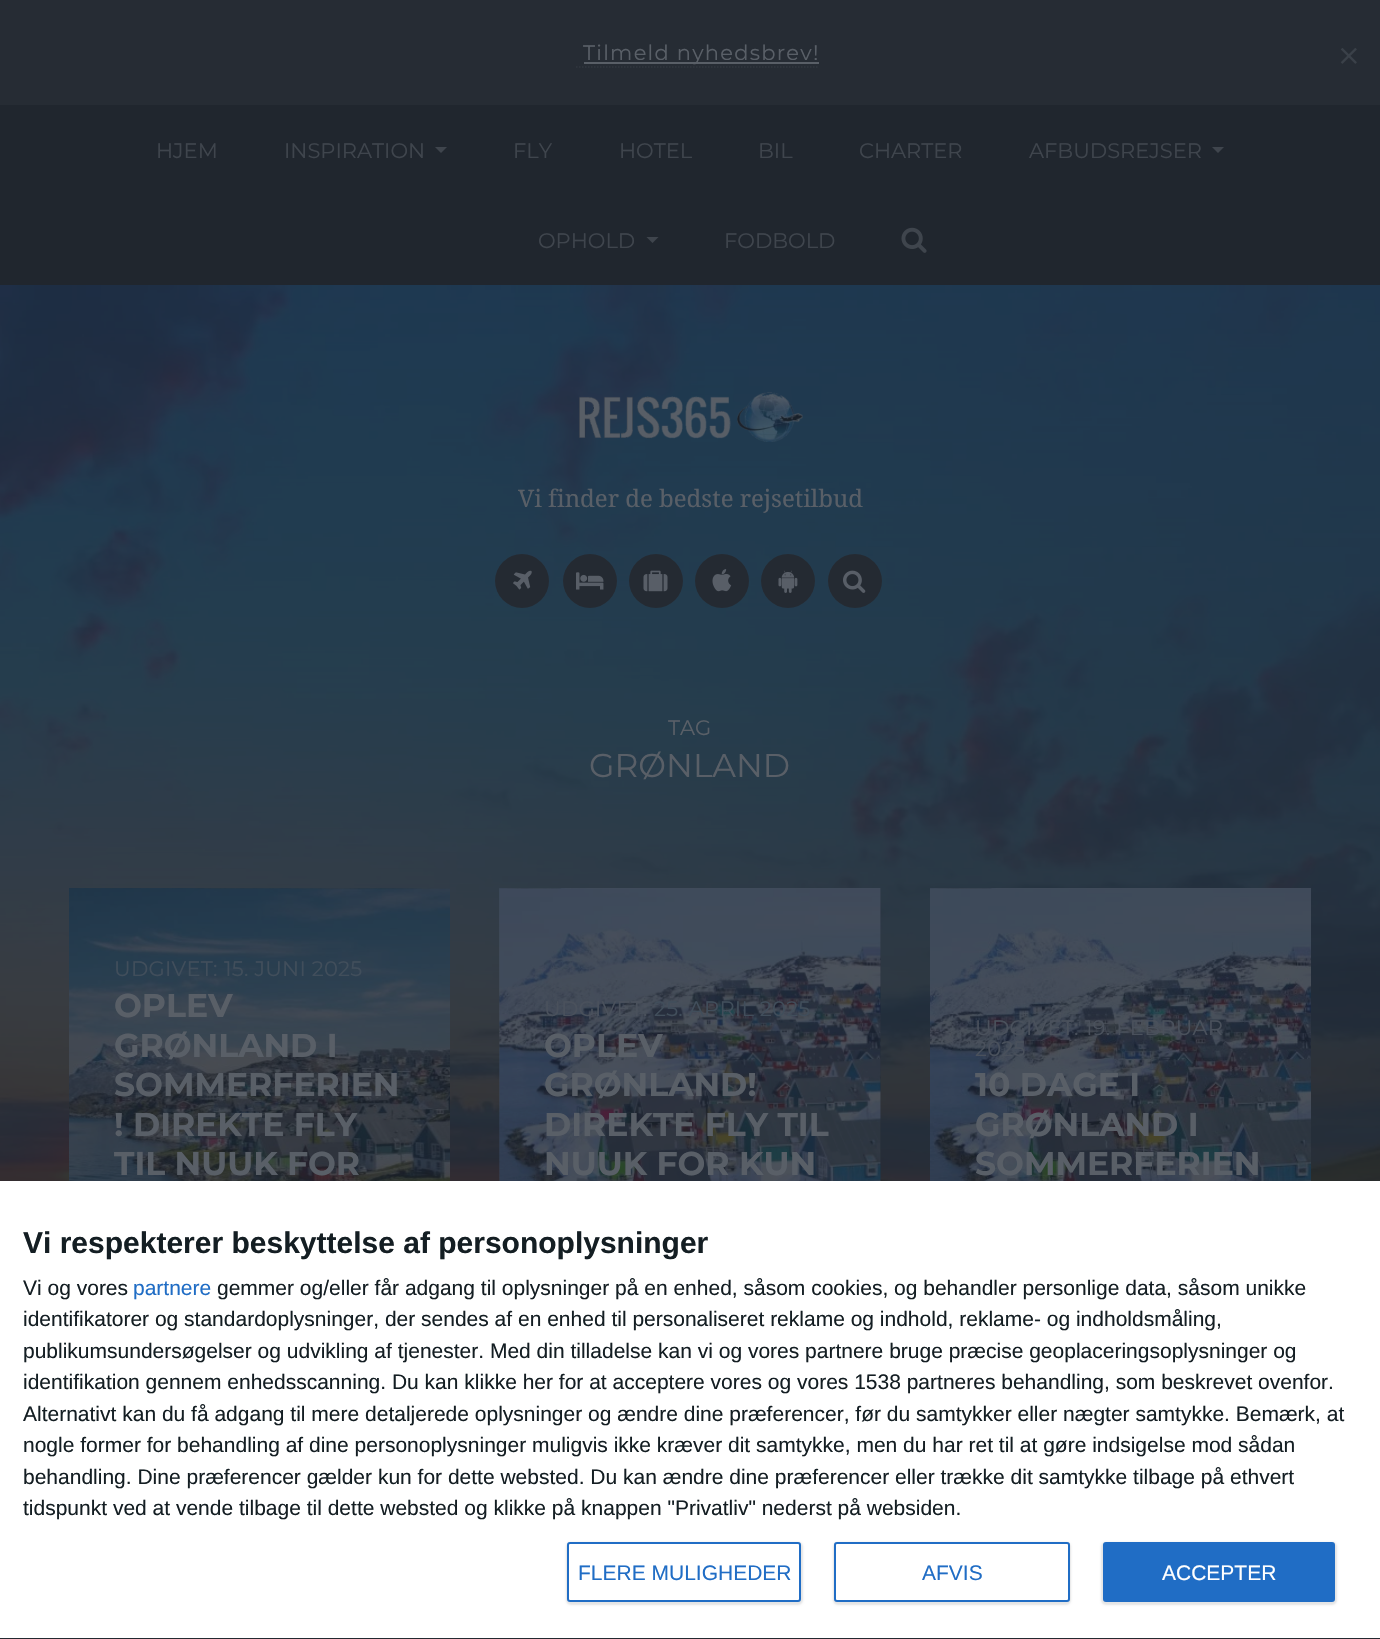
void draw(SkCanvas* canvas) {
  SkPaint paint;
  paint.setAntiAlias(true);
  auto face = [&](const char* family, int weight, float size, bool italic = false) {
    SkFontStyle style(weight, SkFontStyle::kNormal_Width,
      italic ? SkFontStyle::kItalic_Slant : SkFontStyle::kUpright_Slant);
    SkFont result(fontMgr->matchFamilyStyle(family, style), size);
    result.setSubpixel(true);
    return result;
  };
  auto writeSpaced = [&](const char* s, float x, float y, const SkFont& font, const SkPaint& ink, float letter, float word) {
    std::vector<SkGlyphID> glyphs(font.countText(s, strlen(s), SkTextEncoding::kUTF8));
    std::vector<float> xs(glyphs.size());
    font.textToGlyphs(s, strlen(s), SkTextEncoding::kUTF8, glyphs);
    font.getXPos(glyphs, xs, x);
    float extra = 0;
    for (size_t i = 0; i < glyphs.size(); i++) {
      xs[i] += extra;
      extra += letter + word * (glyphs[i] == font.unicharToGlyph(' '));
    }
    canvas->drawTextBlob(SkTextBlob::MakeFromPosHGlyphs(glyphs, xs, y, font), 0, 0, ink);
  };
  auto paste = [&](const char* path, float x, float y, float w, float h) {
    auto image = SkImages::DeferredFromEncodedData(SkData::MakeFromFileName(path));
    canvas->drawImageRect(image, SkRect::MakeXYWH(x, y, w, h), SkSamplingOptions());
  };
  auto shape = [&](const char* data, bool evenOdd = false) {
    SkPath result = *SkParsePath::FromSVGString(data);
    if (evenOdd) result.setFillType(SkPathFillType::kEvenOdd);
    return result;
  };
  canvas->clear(0xff20262e);
  paint.setColor(0xff262c34);
  canvas->drawRect(SkRect::MakeXYWH(0, 0, 1380, 105), paint);
  paint.setStroke(true);
  paint.setStrokeWidth(1.5f);
  paint.setColor(0xff30363e);
  paint.setPathEffect(SkDashPathEffect::Make({{1.5f, 1.5f}}, 0));
  canvas->drawPath(shape("M576 67H819"), paint);
  paint.setPathEffect(nullptr);
  paint.setStroke(false);
  paint.setColor(0xff595f67);
  canvas->drawRect(SkRect::MakeXYWH(584, 62, 235, 2), paint);
  paste("img/1.png", 1340, 48, 17, 16);
  paint.setColor(0xff3f454d);
  canvas->drawPath(shape("M435 147H447L441 153Z"), paint);
  canvas->drawPath(shape("M1212 147H1224L1218 153Z"), paint);
  canvas->drawPath(shape("M646.5 237H658.5L652.5 243Z"), paint);
  paste("img/2.png", 901, 227, 26, 26);
  paste("img/3.png", 0, 285, 1380, 1354);
  paste("img/4.png", 579, 392, 224, 50);
  paint.setColor(0xff242a32);
  canvas->drawCircle(522, 581, 27, paint);
  paste("img/5.png", 513, 570, 19, 20);
  canvas->drawCircle(590, 581, 27, paint);
  paste("img/6.png", 576, 572, 28, 18);
  canvas->drawCircle(656, 581, 27, paint);
  paste("img/7.png", 643, 570, 25, 22);
  canvas->drawCircle(722, 581, 27, paint);
  paste("img/8.png", 712, 569, 20, 23);
  canvas->drawCircle(788, 581, 27, paint);
  paste("img/9.png", 778, 570, 20, 23);
  canvas->drawCircle(855, 581, 27, paint);
  paste("img/10.png", 843, 570, 23, 23);
  paste("img/11.png", 69, 888, 381, 293);
  paste("img/12.png", 499, 888, 382, 293);
  paint.setColor(0x33191f27);
  canvas->drawRect(SkRect::MakeXYWH(500, 888, 381, 293), paint);
  paste("img/13.png", 930, 888, 381, 293);
  paint.setColor(0xffffffff);
  canvas->drawRect(SkRect::MakeXYWH(0, 1181, 1380, 457), paint);
  paint.setColor(0x1a000000);
  paint.setMaskFilter(SkMaskFilter::MakeBlur(kNormal_SkBlurStyle, 1));
  canvas->drawRoundRect(SkRect::MakeXYWH(566, 1542, 237, 63), 5, 5, paint);
  paint.setMaskFilter(nullptr);
  paint.setColor(0xffffffff);
  canvas->drawRoundRect(SkRect::MakeXYWH(568, 1543, 232, 58), 2, 2, paint);
  paint.setStroke(true);
  paint.setStrokeWidth(2);
  paint.setColor(0xff206dc5);
  canvas->drawRoundRect(SkRect::MakeXYWH(568, 1543, 232, 58), 2, 2, paint);
  paint.setStroke(false);
  paint.setColor(0x1a000000);
  paint.setMaskFilter(SkMaskFilter::MakeBlur(kNormal_SkBlurStyle, 1));
  canvas->drawRoundRect(SkRect::MakeXYWH(833, 1542, 238, 63), 5, 5, paint);
  paint.setMaskFilter(nullptr);
  paint.setColor(0xffffffff);
  canvas->drawRoundRect(SkRect::MakeXYWH(835, 1543, 234, 58), 2, 2, paint);
  paint.setStroke(true);
  paint.setColor(0xff206dc5);
  canvas->drawRoundRect(SkRect::MakeXYWH(835, 1543, 234, 58), 2, 2, paint);
  paint.setStroke(false);
  paint.setColor(0x1a000000);
  paint.setMaskFilter(SkMaskFilter::MakeBlur(kNormal_SkBlurStyle, 1));
  canvas->drawRoundRect(SkRect::MakeXYWH(1101, 1542, 236, 63), 5, 5, paint);
  paint.setMaskFilter(nullptr);
  paint.setColor(0xff206dc5);
  canvas->drawRoundRect(SkRect::MakeXYWH(1103, 1542, 232, 60), 3, 3, paint);
  auto f0 = face("Montserrat", 400, 21);
  paint.setColor(0xff595f67);
  writeSpaced("Tilmeld nyhedsbrev!", 583, 60, f0, paint, 1.25f, 0);
  paint.setColor(0xff3f454d);
  {
    const struct { const char* s; float x, y; } items[] = {
      {"HJEM", 156, 158},
      {"INSPIRATION", 284, 158},
      {"FLY", 513, 158},
      {"HOTEL", 619, 158},
      {"BIL", 758, 158},
      {"CHARTER", 859, 158},
      {"AFBUDSREJSER", 1029, 158},
      {"OPHOLD", 538, 248},
      {"FODBOLD", 724, 248},
    };
    for (auto [s, x, y] : items) {
      canvas->drawString(s, x, y, f0, paint);
    }
  }
  auto f1 = face("Droid Serif", 400, 24);
  paint.setColor(0xff595f67);
  canvas->drawString("Vi finder de bedste rejsetilbud", 518, 507, f1, paint);
  canvas->drawString("TAG", 668, 735, f0, paint);
  auto f2 = face("Montserrat", 400, 33);
  canvas->drawString("GRØNLAND", 589, 777, f2, paint);
  paint.setColor(0xff414e5b);
  writeSpaced("UDGIVET:", 114, 976, f0, paint, 0.25f, 0);
  writeSpaced("15. JUNI 2025", 224, 976, f0, paint, 0.25f, 0);
  auto f3 = face("Montserrat", 700, 33);
  paint.setColor(0xff595f67);
  {
    const struct { const char* s; float x, y; } items[] = {
      {"OPLEV", 114, 1017},
      {"GRØNLAND I", 114, 1057},
      {"SOMMERFERIEN", 114, 1096},
      {"! DIREKTE FLY", 114, 1136},
      {"TIL NUUK FOR", 114, 1175},
    };
    for (auto [s, x, y] : items) {
      canvas->drawString(s, x, y, f3, paint);
    }
  }
  paint.setColor(0xff4a515c);
  writeSpaced("UDGIVET:", 544, 1016, f0, paint, 0.25f, 0);
  paint.setColor(0xff414e5b);
  writeSpaced("25. APRIL 2025", 654, 1016, f0, paint, 0.25f, 0);
  paint.setColor(0xff595f67);
  {
    const struct { const char* s; float x, y; } items[] = {
      {"OPLEV", 544, 1057},
      {"GRØNLAND!", 544, 1096},
      {"DIREKTE FLY TIL", 544, 1136},
      {"NUUK FOR KUN", 544, 1175},
    };
    for (auto [s, x, y] : items) {
      canvas->drawString(s, x, y, f3, paint);
    }
  }
  paint.setColor(0xff4a515c);
  {
    const struct { const char* s; float x, y; } items[] = {
      {"UDGIVET:", 975, 1035},
      {"19. FEBRUAR", 1085, 1035},
      {"2025", 975, 1056},
    };
    for (auto [s, x, y] : items) {
      writeSpaced(s, x, y, f0, paint, 0.25f, 0);
    }
  }
  paint.setColor(0xff595f67);
  {
    const struct { const char* s; float x, y; } items[] = {
      {"10 DAGE I", 975, 1096},
      {"GRØNLAND I", 975, 1136},
      {"SOMMERFERIEN", 975, 1175},
    };
    for (auto [s, x, y] : items) {
      canvas->drawString(s, x, y, f3, paint);
    }
  }
  auto f4 = face("Liberation Sans", 700, 30);
  paint.setColor(0xff141e23);
  canvas->drawString("Vi respekterer beskyttelse af personoplysninger", 23, 1253, f4, paint);
  auto f5 = face("Liberation Sans", 400, 21);
  canvas->drawString("Vi og vores", 23, 1295, f5, paint);
  paint.setColor(0xff206dc5);
  canvas->drawString("partnere", 133, 1295, f5, paint);
  paint.setColor(0xff141e23);
  {
    const struct { const char* s; float x, y; } items[] = {
      {"gemmer og/eller får adgang til oplysninger på en enhed, såsom cookies, og behandler personlige data, såsom unikke", 217, 1295},
      {"identifikatorer og standardoplysninger, der sendes af en enhed til personaliseret reklame og indhold, reklame- og indholdsmåling,", 23, 1326},
      {"publikumsundersøgelser og udvikling af tjenester. Med din tilladelse kan vi og vores partnere bruge præcise geoplaceringsoplysninger og", 23, 1358},
      {"identifikation gennem enhedsscanning. Du kan klikke her for at acceptere vores og vores 1538 partneres behandling, som beskrevet ovenfor.", 23, 1389},
      {"Alternativt kan du få adgang til mere detaljerede oplysninger og ændre dine præferencer, før du samtykker eller nægter samtykke. Bemærk, at", 23, 1421},
      {"nogle former for behandling af dine personoplysninger muligvis ikke kræver dit samtykke, men du har ret til at gøre indsigelse mod sådan", 23, 1452},
      {"behandling. Dine præferencer gælder kun for dette websted. Du kan ændre dine præferencer eller trække dit samtykke tilbage på ethvert", 23, 1484},
      {"tidspunkt ved at vende tilbage til dette websted og klikke på knappen \"Privatliv\" nederst på websiden.", 23, 1515},
    };
    for (auto [s, x, y] : items) {
      canvas->drawString(s, x, y, f5, paint);
    }
  }
  paint.setColor(0xff206dc5);
  canvas->drawString("FLERE MULIGHEDER", 578, 1580, f5, paint);
  canvas->drawString("AFVIS", 922, 1580, f5, paint);
  paint.setColor(0xffffffff);
  canvas->drawString("ACCEPTER", 1162, 1580, f5, paint);
}
